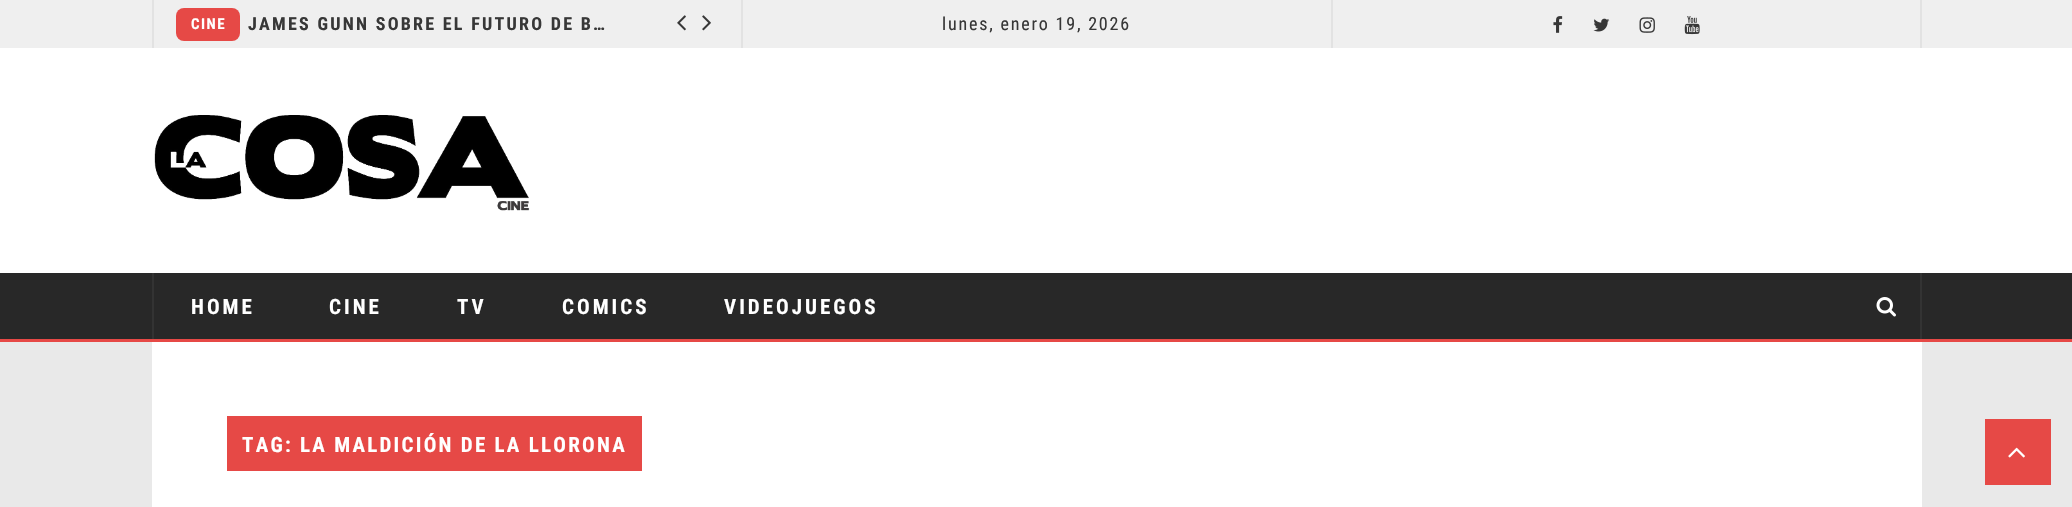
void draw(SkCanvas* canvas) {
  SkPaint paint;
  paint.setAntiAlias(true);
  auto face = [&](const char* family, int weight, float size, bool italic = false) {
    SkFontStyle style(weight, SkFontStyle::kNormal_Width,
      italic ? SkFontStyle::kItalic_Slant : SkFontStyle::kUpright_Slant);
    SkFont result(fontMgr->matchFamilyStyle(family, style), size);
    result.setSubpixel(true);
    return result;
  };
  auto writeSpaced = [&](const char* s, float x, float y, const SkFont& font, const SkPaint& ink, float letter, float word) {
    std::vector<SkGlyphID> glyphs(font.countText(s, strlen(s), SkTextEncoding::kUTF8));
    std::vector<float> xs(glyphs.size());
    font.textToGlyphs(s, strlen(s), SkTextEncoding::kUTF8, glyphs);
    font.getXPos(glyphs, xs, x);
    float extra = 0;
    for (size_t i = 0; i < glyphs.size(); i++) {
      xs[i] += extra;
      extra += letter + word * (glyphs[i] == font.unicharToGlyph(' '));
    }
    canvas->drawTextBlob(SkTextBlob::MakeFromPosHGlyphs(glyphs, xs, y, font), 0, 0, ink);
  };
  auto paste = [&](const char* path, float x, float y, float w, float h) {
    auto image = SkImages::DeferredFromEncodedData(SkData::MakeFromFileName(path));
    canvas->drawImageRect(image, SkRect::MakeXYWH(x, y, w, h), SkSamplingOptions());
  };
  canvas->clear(0xffe9e9e9);
  {
    const struct { float x, y, w, h; SkColor color; } items[] = {
      {0, 0, 2072, 48, 0xffefefef},
      {152, 0, 2, 48, 0xffe2e2e2},
      {741, 0, 2, 48, 0xffe2e2e2},
    };
    for (auto [x, y, w, h, color] : items) {
      paint.setColor(color);
      canvas->drawRect(SkRect::MakeXYWH(x, y, w, h), paint);
    }
  }
  paint.setColor(0xffe64946);
  canvas->drawRoundRect(SkRect::MakeXYWH(176, 8, 64, 33), 8, 8, paint);
  paste("img/1.png", 677, 15, 9, 16);
  paste("img/2.png", 702, 15, 9, 16);
  paint.setColor(0xffe2e2e2);
  canvas->drawRect(SkRect::MakeXYWH(1331, 0, 2, 48), paint);
  canvas->drawRect(SkRect::MakeXYWH(1920, 0, 2, 48), paint);
  paste("img/3.png", 1553, 16, 10, 17);
  paste("img/4.png", 1593, 18, 17, 14);
  paste("img/5.png", 1639, 17, 16, 16);
  paste("img/6.png", 1684, 16, 16, 19);
  paint.setColor(0xffffffff);
  canvas->drawRect(SkRect::MakeXYWH(0, 48, 2072, 225), paint);
  paste("img/7.png", 154, 115, 376, 96);
  {
    const struct { float x, y, w, h; SkColor color; } items[] = {
      {0, 273, 2072, 66, 0xff282828},
      {0, 339, 2072, 3, 0xffe64946},
      {152, 273, 2, 66, 0xff333333},
      {1920, 273, 2, 66, 0xff333333},
    };
    for (auto [x, y, w, h, color] : items) {
      paint.setColor(color);
      canvas->drawRect(SkRect::MakeXYWH(x, y, w, h), paint);
    }
  }
  paste("img/8.png", 1876, 297, 20, 20);
  {
    const struct { float x, y, w, h; SkColor color; } items[] = {
      {152, 342, 1770, 165, 0xffffffff},
      {227, 416, 415, 55, 0xffe64946},
      {1985, 419, 66, 66, 0xffe64946},
    };
    for (auto [x, y, w, h, color] : items) {
      paint.setColor(color);
      canvas->drawRect(SkRect::MakeXYWH(x, y, w, h), paint);
    }
  }
  paste("img/9.png", 2008, 447, 17, 11);
  auto f0 = face("Roboto Condensed", 700, 15);
  paint.setColor(0xffffffff);
  writeSpaced("CINE", 191, 29, f0, paint, 1.5f, 0);
  auto f1 = face("Roboto Condensed", 700, 18);
  paint.setColor(0xff373737);
  writeSpaced("JAMES GUNN SOBRE EL FUTURO DE B…", 248, 30, f1, paint, 2.25f, 0);
  auto f2 = face("Roboto Condensed", 400, 18);
  writeSpaced("lunes, enero 19, 2026", 942, 30, f2, paint, 1.8f, 0);
  auto f3 = face("Roboto Condensed", 700, 21);
  paint.setColor(0xffffffff);
  {
    const struct { const char* s; float x, y; } items[] = {
      {"HOME", 191, 314},
      {"CINE", 329, 314},
      {"TV", 457, 314},
      {"COMICS", 562, 314},
      {"VIDEOJUEGOS", 724, 314},
    };
    for (auto [s, x, y] : items) {
      writeSpaced(s, x, y, f3, paint, 3, 0);
    }
  }
  writeSpaced("TAG: LA MALDICIÓN DE LA LLORONA", 242, 452, f3, paint, 2.25f, 0);
}
